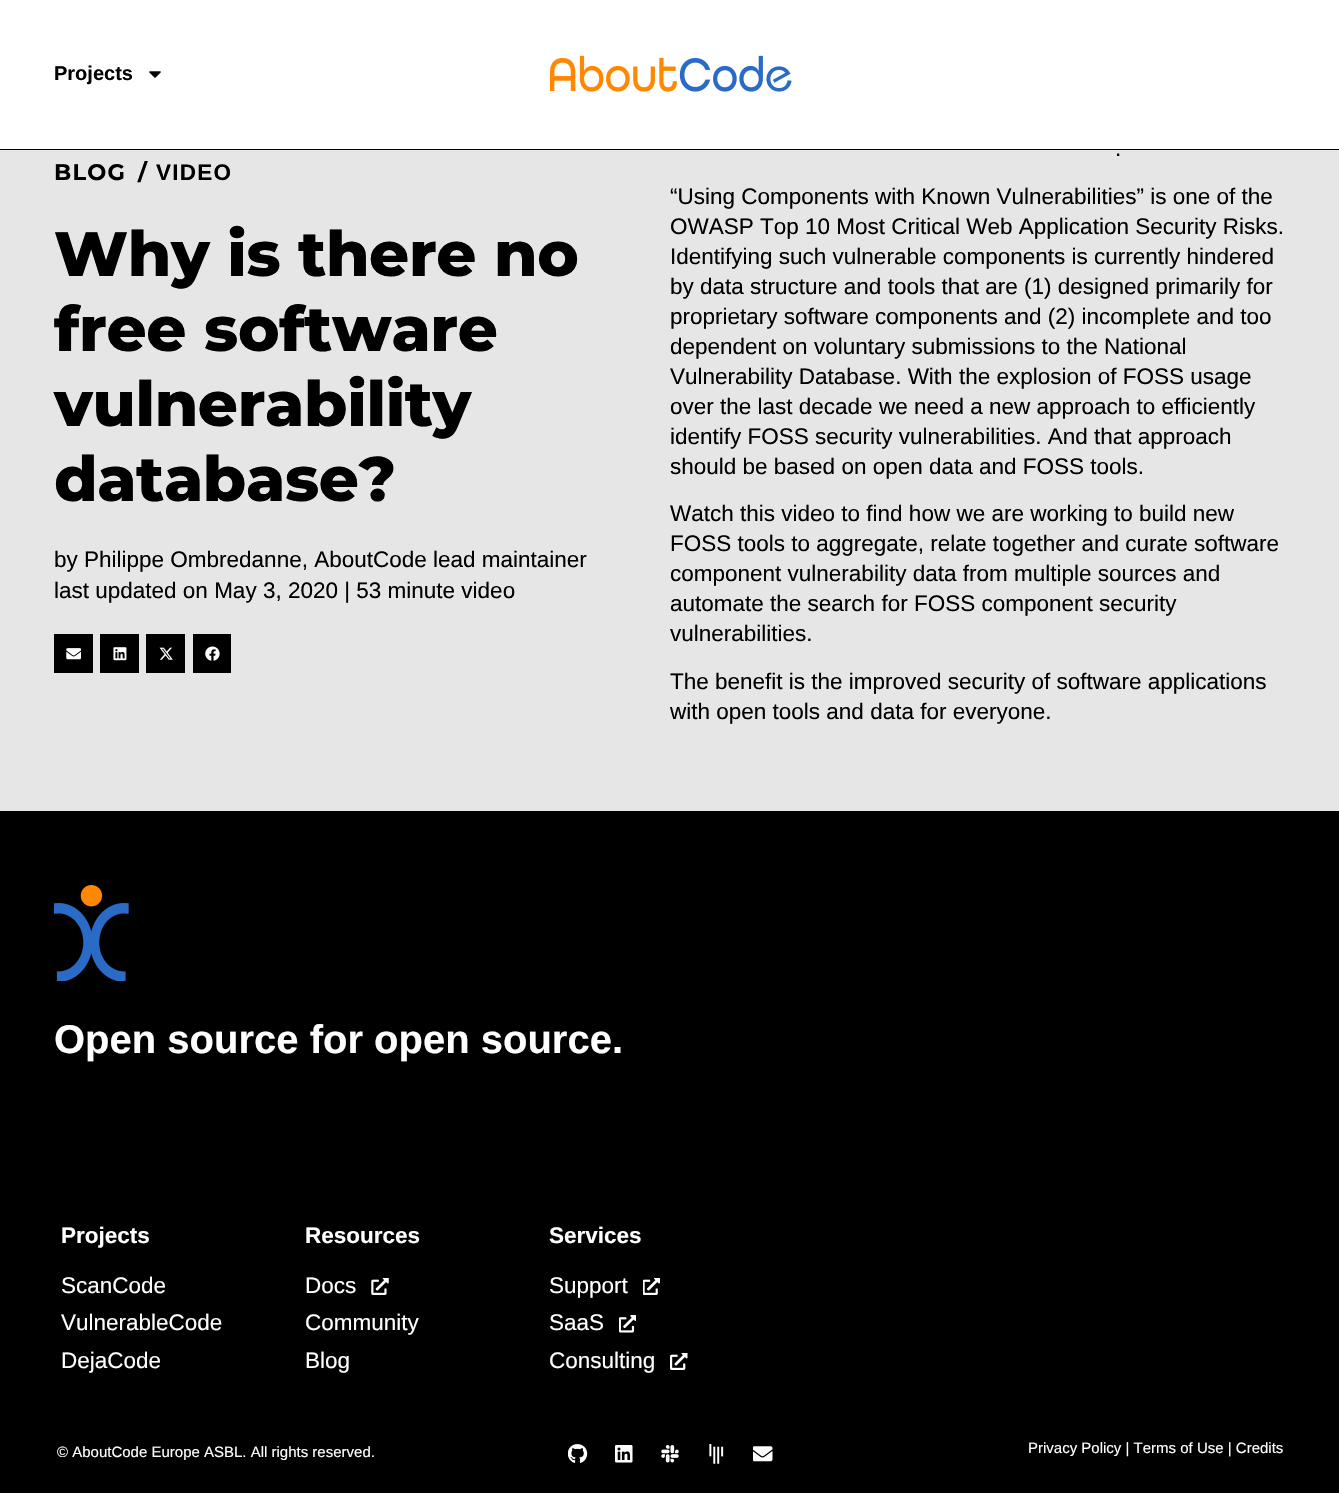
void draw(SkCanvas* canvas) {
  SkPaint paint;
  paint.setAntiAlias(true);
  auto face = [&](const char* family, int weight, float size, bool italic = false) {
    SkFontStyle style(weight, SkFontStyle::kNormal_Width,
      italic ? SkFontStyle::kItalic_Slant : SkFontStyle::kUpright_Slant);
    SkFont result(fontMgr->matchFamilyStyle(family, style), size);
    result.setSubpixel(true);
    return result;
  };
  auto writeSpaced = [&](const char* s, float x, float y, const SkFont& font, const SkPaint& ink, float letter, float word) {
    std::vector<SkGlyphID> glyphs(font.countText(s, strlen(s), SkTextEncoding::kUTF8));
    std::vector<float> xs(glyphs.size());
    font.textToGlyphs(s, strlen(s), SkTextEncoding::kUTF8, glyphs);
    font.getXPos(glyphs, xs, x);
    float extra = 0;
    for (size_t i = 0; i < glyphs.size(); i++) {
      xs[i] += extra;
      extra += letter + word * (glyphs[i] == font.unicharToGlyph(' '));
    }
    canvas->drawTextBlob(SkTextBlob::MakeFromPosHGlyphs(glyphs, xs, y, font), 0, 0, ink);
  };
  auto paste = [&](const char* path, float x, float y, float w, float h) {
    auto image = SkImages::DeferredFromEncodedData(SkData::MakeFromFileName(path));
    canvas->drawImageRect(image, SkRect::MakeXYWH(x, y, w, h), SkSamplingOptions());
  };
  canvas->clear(0xffe6e6e6);
  paint.setColor(0xffffffff);
  canvas->drawRect(SkRect::MakeXYWH(0, 0, 1339, 149), paint);
  paint.setColor(0xff000000);
  canvas->drawRect(SkRect::MakeXYWH(0, 149, 1339, 1), paint);
  paste("img/1.png", 149, 71, 12, 7);
  paste("img/2.png", 550, 55, 242, 37);
  canvas->drawRect(SkRect::MakeXYWH(54, 634, 39, 39), paint);
  paste("img/3.png", 66, 648, 15, 12);
  canvas->drawRect(SkRect::MakeXYWH(100, 634, 39, 39), paint);
  paste("img/4.png", 113, 647, 14, 14);
  canvas->drawRect(SkRect::MakeXYWH(146, 634, 39, 39), paint);
  paste("img/5.png", 159, 647, 14, 13);
  canvas->drawRect(SkRect::MakeXYWH(193, 634, 38, 39), paint);
  paste("img/6.png", 205, 646, 15, 15);
  canvas->drawRect(SkRect::MakeXYWH(0, 811, 1339, 682), paint);
  paste("img/7.png", 54, 885, 75, 96);
  paste("img/8.png", 371, 1278, 18, 17);
  paste("img/9.png", 643, 1278, 17, 17);
  paste("img/10.png", 619, 1315, 17, 18);
  paste("img/11.png", 670, 1353, 18, 17);
  paste("img/12.png", 568, 1444, 20, 19);
  paste("img/13.png", 615, 1445, 18, 18);
  paste("img/14.png", 661, 1445, 18, 18);
  paste("img/15.png", 709, 1444, 15, 20);
  paste("img/16.png", 753, 1446, 20, 16);
  auto f0 = face("Liberation Sans", 700, 20);
  canvas->drawString("Projects", 54, 80, f0, paint);
  auto f1 = face("Montserrat", 700, 22.5f);
  writeSpaced("BLOG", 54, 180, f1, paint, 1.25f, 0);
  writeSpaced("/", 138, 180, f1, paint, 1.25f, 0);
  auto f2 = face("Liberation Sans", 700, 22.5f);
  writeSpaced("VIDEO", 156, 180, f2, paint, 1.25f, 0);
  auto f3 = face("Montserrat", 800, 62.5f);
  {
    const struct { const char* s; float x, y; } items[] = {
      {"Why is there no", 54, 276},
      {"free software", 54, 351},
      {"vulnerability", 54, 426},
      {"database?", 54, 501},
    };
    for (auto [s, x, y] : items) {
      writeSpaced(s, x, y, f3, paint, -0.3f, 0);
    }
  }
  auto f4 = face("Liberation Sans", 400, 22.5f);
  {
    const struct { const char* s; float x, y; } items[] = {
      {"by Philippe Ombredanne, AboutCode lead maintainer", 54, 567},
      {"last updated on May 3, 2020 | 53 minute video", 54, 598},
      {".", 1115, 156},
      {"“Using Components with Known Vulnerabilities” is one of the", 670, 204},
      {"OWASP Top 10 Most Critical Web Application Security Risks.", 670, 234},
      {"Identifying such vulnerable components is currently hindered", 670, 264},
      {"by data structure and tools that are (1) designed primarily for", 670, 294},
      {"proprietary software components and (2) incomplete and too", 670, 324},
      {"dependent on voluntary submissions to the National", 670, 354},
      {"Vulnerability Database. With the explosion of FOSS usage", 670, 384},
      {"over the last decade we need a new approach to efficiently", 670, 414},
      {"identify FOSS security vulnerabilities. And that approach", 670, 444},
      {"should be based on open data and FOSS tools.", 670, 474},
      {"Watch this video to find how we are working to build new", 670, 521},
      {"FOSS tools to aggregate, relate together and curate software", 670, 551},
      {"component vulnerability data from multiple sources and", 670, 581},
      {"automate the search for FOSS component security", 670, 611},
      {"vulnerabilities.", 670, 641},
      {"The benefit is the improved security of software applications", 670, 689},
      {"with open tools and data for everyone.", 670, 719},
    };
    for (auto [s, x, y] : items) {
      canvas->drawString(s, x, y, f4, paint);
    }
  }
  auto f5 = face("Liberation Sans", 700, 40);
  paint.setColor(0xffffffff);
  canvas->drawString("Open source for open source.", 54, 1053, f5, paint);
  canvas->drawString("Projects", 61, 1243, f2, paint);
  {
    const struct { const char* s; float x, y; } items[] = {
      {"ScanCode", 61, 1293},
      {"VulnerableCode", 61, 1330},
      {"DejaCode", 61, 1368},
    };
    for (auto [s, x, y] : items) {
      canvas->drawString(s, x, y, f4, paint);
    }
  }
  canvas->drawString("Resources", 305, 1243, f2, paint);
  {
    const struct { const char* s; float x, y; } items[] = {
      {"Docs", 305, 1293},
      {"Community", 305, 1330},
      {"Blog", 305, 1368},
    };
    for (auto [s, x, y] : items) {
      canvas->drawString(s, x, y, f4, paint);
    }
  }
  canvas->drawString("Services", 549, 1243, f2, paint);
  {
    const struct { const char* s; float x, y; } items[] = {
      {"Support", 549, 1293},
      {"SaaS", 549, 1330},
      {"Consulting", 549, 1368},
    };
    for (auto [s, x, y] : items) {
      canvas->drawString(s, x, y, f4, paint);
    }
  }
  auto f6 = face("Liberation Sans", 400, 15);
  canvas->drawString("© AboutCode Europe ASBL. All rights reserved.", 57, 1457, f6, paint);
  canvas->drawString("Privacy Policy | Terms of Use | Credits", 1028, 1453, f6, paint);
}
